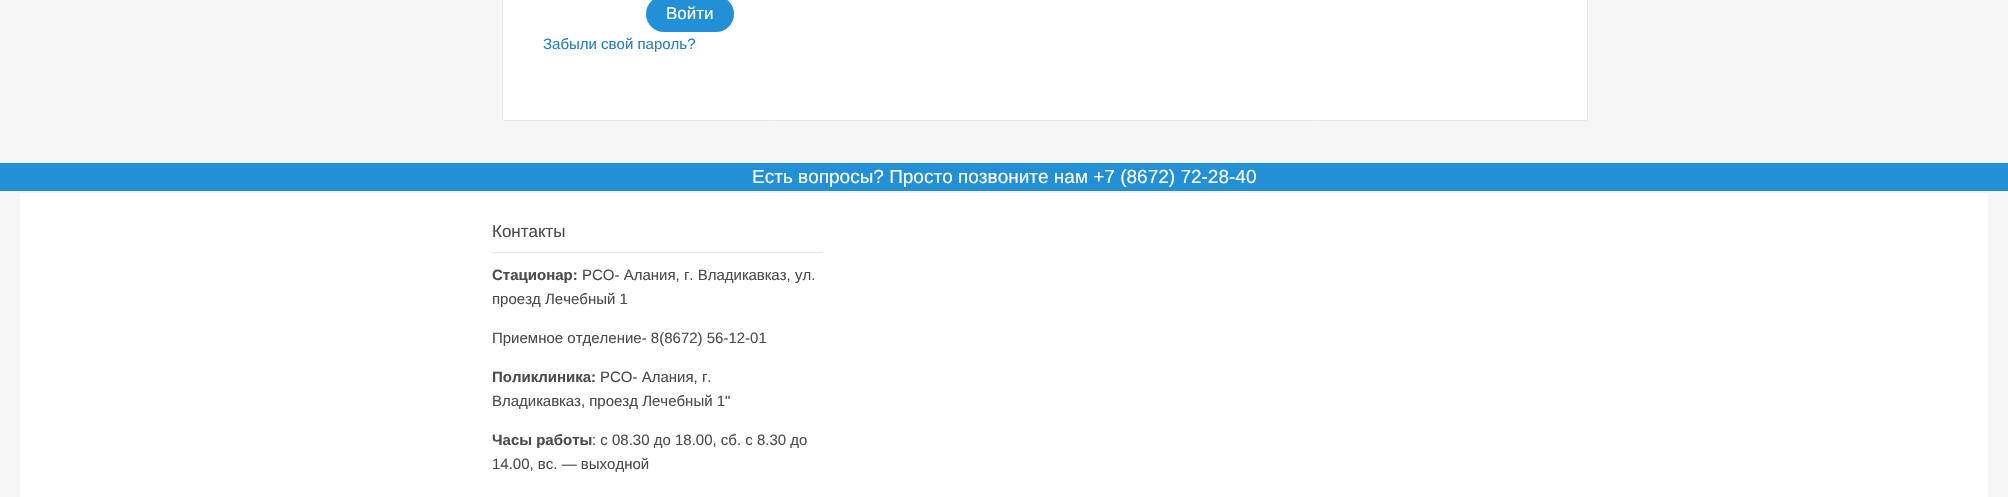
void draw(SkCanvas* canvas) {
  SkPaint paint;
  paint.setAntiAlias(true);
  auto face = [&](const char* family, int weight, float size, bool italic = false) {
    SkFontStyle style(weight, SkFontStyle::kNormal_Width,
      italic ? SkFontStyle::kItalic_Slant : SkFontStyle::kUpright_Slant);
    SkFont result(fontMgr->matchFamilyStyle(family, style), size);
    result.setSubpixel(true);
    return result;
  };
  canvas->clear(0xfff5f5f5);
  paint.setColor(0xffffffff);
  canvas->drawRoundRect(SkRect::MakeXYWH(502.5f, -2.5f, 1085, 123), 1.5f, 1.5f, paint);
  paint.setStroke(true);
  paint.setStrokeWidth(1);
  paint.setColor(0xffe8e8e8);
  canvas->drawRoundRect(SkRect::MakeXYWH(502.5f, -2.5f, 1085, 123), 1.5f, 1.5f, paint);
  paint.setStroke(false);
  paint.setColor(0xff238fd4);
  canvas->drawRoundRect(SkRect::MakeXYWH(646, -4, 88, 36), 18, 18, paint);
  {
    const struct { float x, y, w, h; SkColor color; } items[] = {
      {0, 163, 2008, 28, 0xff238fd4},
      {20, 193, 1968, 304, 0xffffffff},
      {492, 252, 330, 1, 0xffe8e8e8},
    };
    for (auto [x, y, w, h, color] : items) {
      paint.setColor(color);
      canvas->drawRect(SkRect::MakeXYWH(x, y, w, h), paint);
    }
  }
  auto f0 = face("Liberation Sans", 400, 17);
  paint.setColor(0xffffffff);
  canvas->drawString("Войти", 666, 19, f0, paint);
  auto f1 = face("Liberation Sans", 400, 15);
  paint.setColor(0xff257fb8);
  canvas->drawString("Забыли свой пароль?", 543, 49, f1, paint);
  auto f2 = face("Liberation Sans", 400, 19);
  paint.setColor(0xffffffff);
  canvas->drawString("Есть вопросы? Просто позвоните нам +7 (8672) 72-28-40", 752, 183, f2, paint);
  paint.setColor(0xff4c4c4c);
  canvas->drawString("Контакты", 492, 237, f0, paint);
  auto f3 = face("Liberation Sans", 700, 15);
  canvas->drawString("Стационар:", 492, 280, f3, paint);
  {
    const struct { const char* s; float x, y; } items[] = {
      {"РСО- Алания, г. Владикавказ, ул.", 582, 280},
      {"проезд Лечебный 1", 492, 304},
      {"Приемное отделение- 8(8672) 56-12-01", 492, 343},
    };
    for (auto [s, x, y] : items) {
      canvas->drawString(s, x, y, f1, paint);
    }
  }
  canvas->drawString("Поликлиника:", 492, 382, f3, paint);
  canvas->drawString("РСО- Алания, г.", 600, 382, f1, paint);
  canvas->drawString("Владикавказ, проезд Лечебный 1\"", 492, 406, f1, paint);
  canvas->drawString("Часы работы", 492, 445, f3, paint);
  canvas->drawString(": с 08.30 до 18.00, сб. с 8.30 до", 592, 445, f1, paint);
  canvas->drawString("14.00, вс. — выходной", 492, 469, f1, paint);
}
